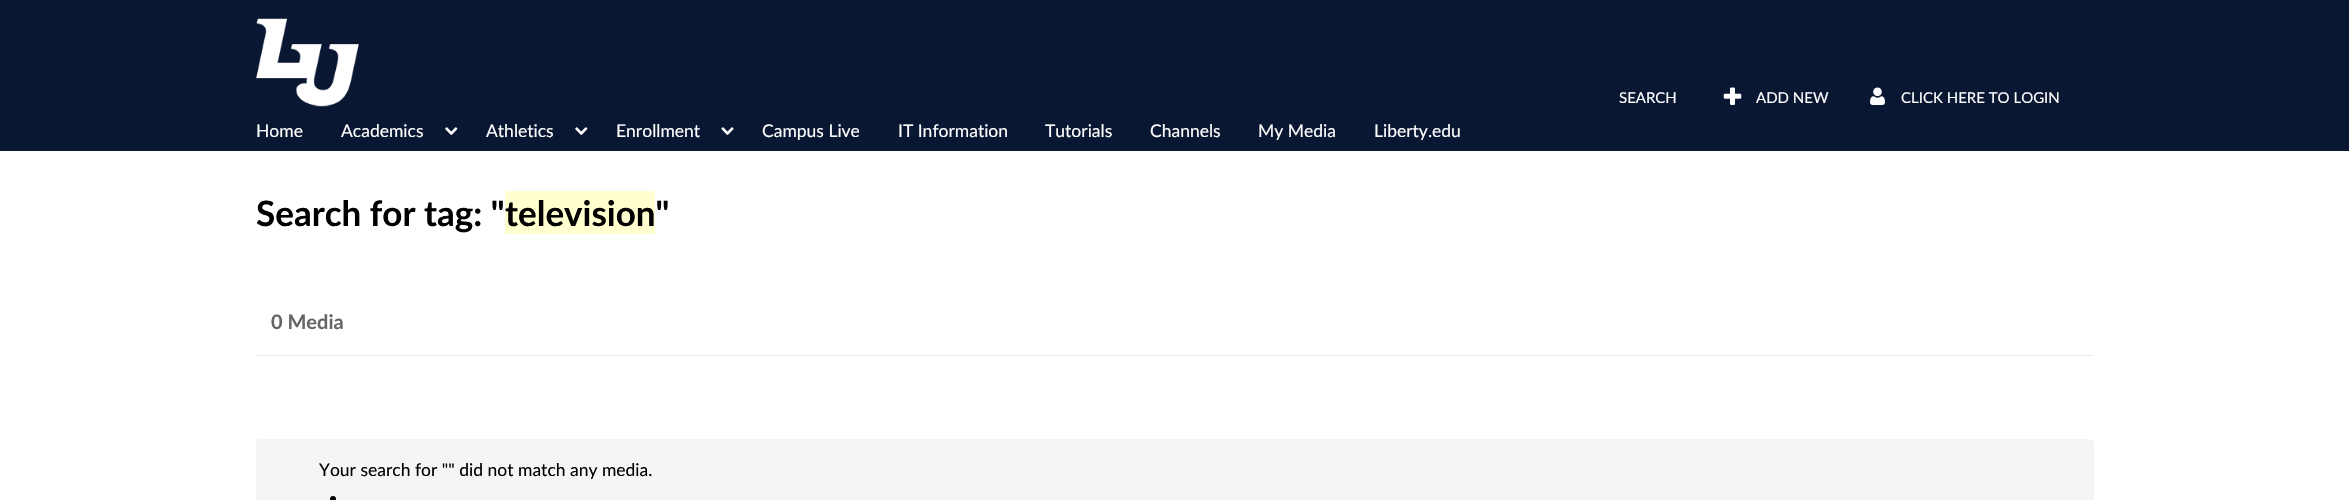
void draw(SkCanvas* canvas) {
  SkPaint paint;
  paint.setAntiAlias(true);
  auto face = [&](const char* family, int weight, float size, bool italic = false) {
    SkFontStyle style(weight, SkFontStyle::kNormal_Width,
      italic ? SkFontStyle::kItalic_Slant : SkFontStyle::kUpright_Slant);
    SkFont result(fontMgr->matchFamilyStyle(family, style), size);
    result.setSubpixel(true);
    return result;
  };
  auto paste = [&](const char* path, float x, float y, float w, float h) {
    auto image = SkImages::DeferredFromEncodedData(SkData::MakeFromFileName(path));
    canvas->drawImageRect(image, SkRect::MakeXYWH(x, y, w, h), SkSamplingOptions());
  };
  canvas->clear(0xffffffff);
  paint.setColor(0xff0a1733);
  canvas->drawRect(SkRect::MakeXYWH(0, 0, 2349, 151), paint);
  paste("img/1.png", 256, 18, 103, 89);
  paste("img/2.png", 1723, 87, 19, 18);
  paste("img/3.png", 1870, 87, 15, 18);
  paste("img/4.png", 445, 127, 13, 8);
  paste("img/4.png", 575, 127, 13, 8);
  paste("img/5.png", 721, 127, 13, 8);
  paint.setColor(0xffffffcf);
  canvas->drawRect(SkRect::MakeXYWH(505, 191, 150, 43), paint);
  paint.setColor(0xffebebeb);
  canvas->drawRect(SkRect::MakeXYWH(256, 355, 1838, 1), paint);
  paint.setColor(0xfff5f5f5);
  canvas->drawRoundRect(SkRect::MakeXYWH(256, 439, 1838, 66), 5, 5, paint);
  paint.setColor(0xff000000);
  canvas->drawRoundRect(SkRect::MakeXYWH(330, 496, 6, 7), 3, 3, paint);
  auto f0 = face("Lato", 400, 15);
  paint.setColor(0xffffffff);
  {
    const struct { const char* s; float x, y; } items[] = {
      {"SEARCH", 1619, 103},
      {"ADD NEW", 1756, 103},
      {"CLICK HERE TO LOGIN", 1901, 103},
    };
    for (auto [s, x, y] : items) {
      canvas->drawString(s, x, y, f0, paint);
    }
  }
  auto f1 = face("Lato", 400, 17.5f);
  {
    const struct { const char* s; float x, y; } items[] = {
      {"Home", 256, 137},
      {"Academics", 341, 137},
      {"Athletics", 486, 137},
      {"Enrollment", 616, 137},
      {"Campus Live", 762, 137},
      {"IT Information", 898, 137},
      {"Tutorials", 1045, 137},
      {"Channels", 1150, 137},
      {"My Media", 1258, 137},
      {"Liberty.edu", 1374, 137},
    };
    for (auto [s, x, y] : items) {
      canvas->drawString(s, x, y, f1, paint);
    }
  }
  auto f2 = face("Lato", 700, 35);
  paint.setColor(0xff000000);
  canvas->drawString("Search for tag: \"", 256, 226, f2, paint);
  canvas->drawString("television\"", 505, 226, f2, paint);
  auto f3 = face("Lato", 700, 20);
  paint.setColor(0xff666666);
  canvas->drawString("0 Media", 271, 329, f3, paint);
  paint.setColor(0xff000000);
  canvas->drawString("Your search for \"\" did not match any media.", 319, 476, f1, paint);
}
